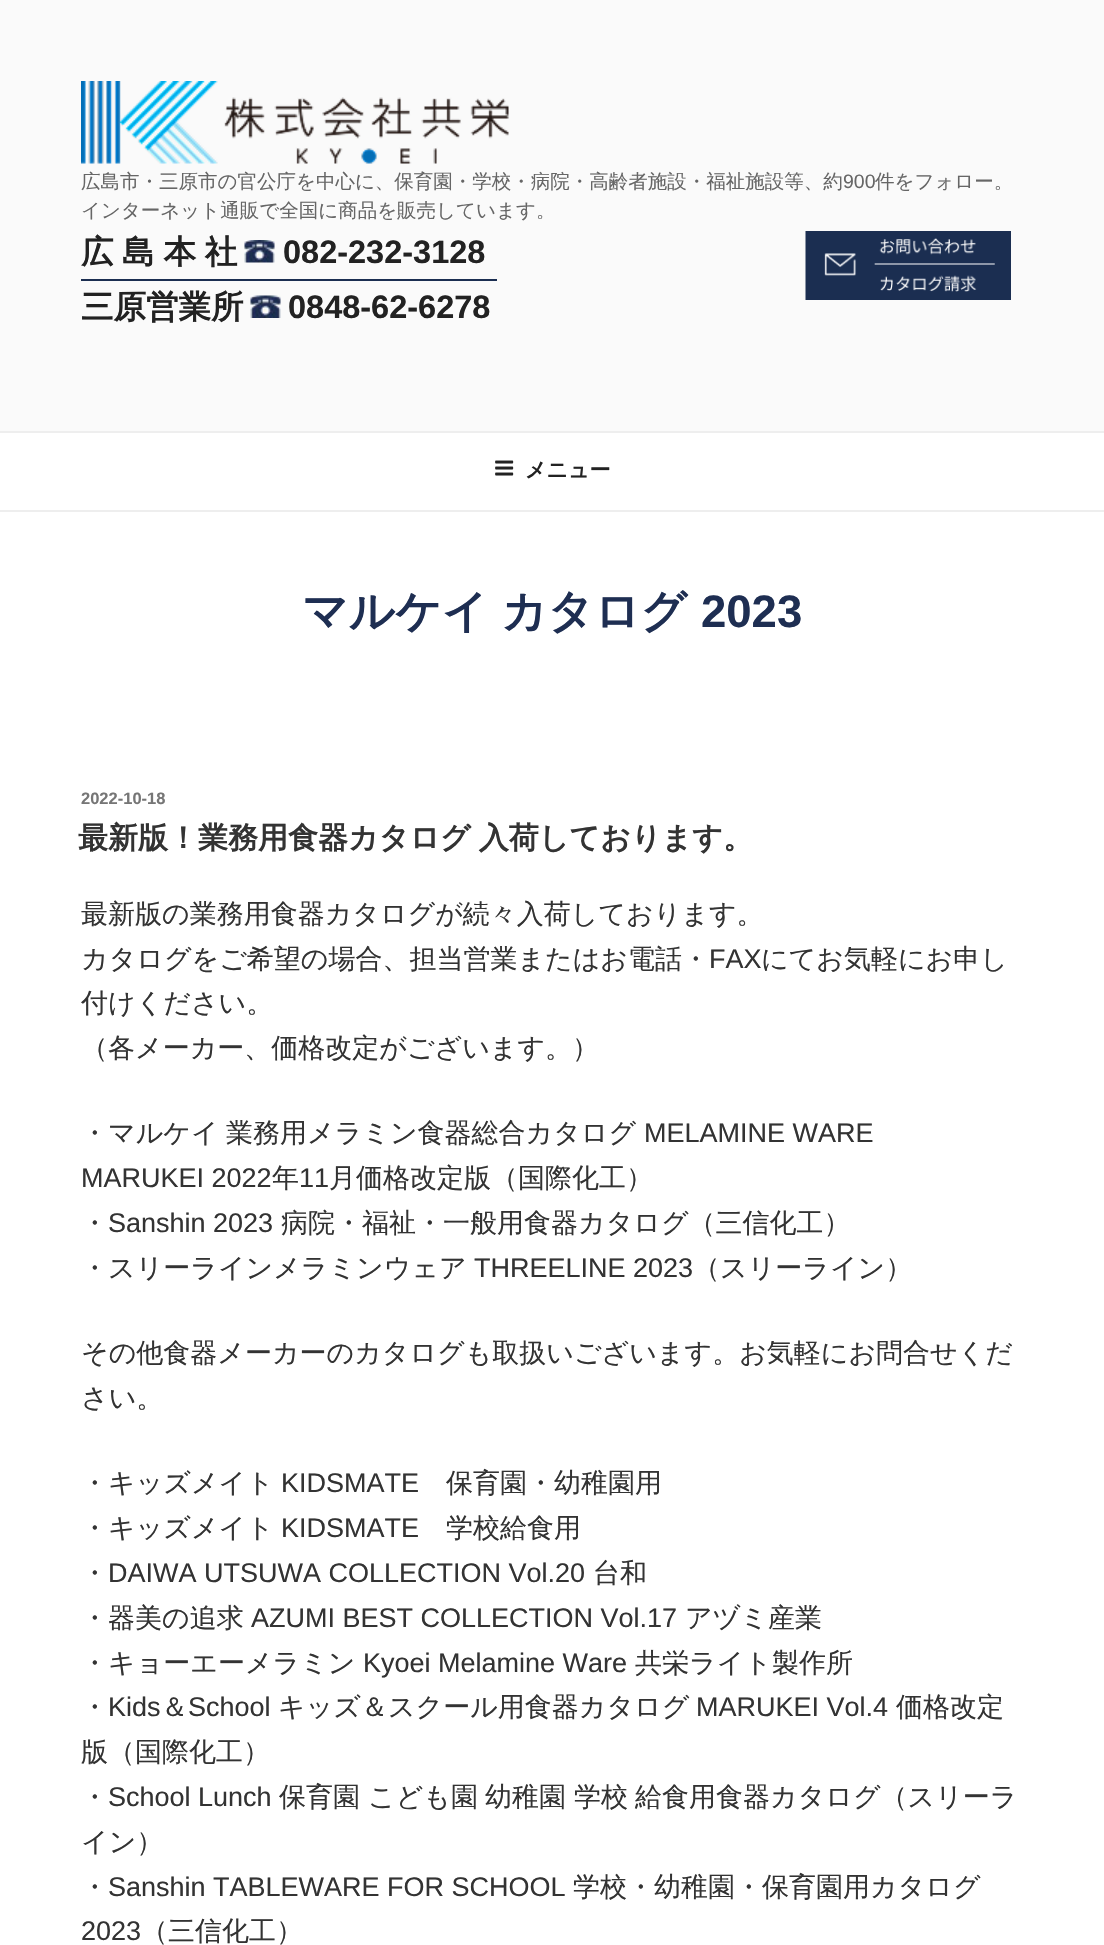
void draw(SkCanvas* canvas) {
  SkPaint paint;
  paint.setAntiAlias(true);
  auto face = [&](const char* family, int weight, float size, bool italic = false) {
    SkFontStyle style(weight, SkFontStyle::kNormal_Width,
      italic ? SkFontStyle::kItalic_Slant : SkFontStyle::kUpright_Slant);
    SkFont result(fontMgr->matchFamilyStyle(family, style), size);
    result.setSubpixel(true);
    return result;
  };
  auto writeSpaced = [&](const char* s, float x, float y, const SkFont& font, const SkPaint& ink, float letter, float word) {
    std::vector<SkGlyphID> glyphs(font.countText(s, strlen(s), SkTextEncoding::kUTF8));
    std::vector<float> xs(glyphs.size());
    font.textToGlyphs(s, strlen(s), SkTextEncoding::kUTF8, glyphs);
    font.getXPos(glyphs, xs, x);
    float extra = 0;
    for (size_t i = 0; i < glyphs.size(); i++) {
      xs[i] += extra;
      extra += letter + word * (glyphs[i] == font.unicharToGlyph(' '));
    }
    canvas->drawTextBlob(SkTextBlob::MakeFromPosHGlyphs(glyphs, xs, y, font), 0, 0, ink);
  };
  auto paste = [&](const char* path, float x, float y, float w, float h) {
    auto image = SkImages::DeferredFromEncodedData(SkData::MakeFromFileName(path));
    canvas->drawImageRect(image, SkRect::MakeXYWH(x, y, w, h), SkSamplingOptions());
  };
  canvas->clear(0xffffffff);
  paint.setColor(0xfffafafa);
  canvas->drawRect(SkRect::MakeXYWH(0, 0, 1104, 431), paint);
  paste("img/1.png", 81, 81, 428, 83);
  paste("img/2.png", 244, 240, 31, 23);
  paint.setColor(0xff1b2e51);
  canvas->drawRect(SkRect::MakeXYWH(81, 279, 416, 2), paint);
  paste("img/3.png", 250, 295, 31, 23);
  paste("img/4.png", 805, 231, 206, 69);
  paint.setColor(0xffeeeeee);
  canvas->drawRect(SkRect::MakeXYWH(0, 431, 1104, 2), paint);
  canvas->drawRect(SkRect::MakeXYWH(0, 510, 1104, 2), paint);
  paste("img/5.png", 495, 460, 19, 16);
  auto f0 = face("WenQuanYi Zen Hei", 500, 19.5f);
  paint.setColor(0xff666666);
  canvas->drawString("広島市・三原市の官公庁を中心に、保育園・学校・病院・高齢者施設・福祉施設等、約", 81, 188, f0, paint);
  auto f1 = face("Liberation Sans", 400, 19.5f);
  canvas->drawString("900", 843, 188, f1, paint);
  canvas->drawString("件をフォロー。", 875, 188, f0, paint);
  canvas->drawString("インターネット通販で全国に商品を販売しています。", 81, 217, f0, paint);
  auto f2 = face("WenQuanYi Zen Hei", 700, 32.5f);
  paint.setColor(0xff222222);
  writeSpaced("広 島 本 社", 81, 263, f2, paint, 0, -1);
  auto f3 = face("Liberation Sans", 700, 32.5f);
  canvas->drawString("082-232-3128", 283, 263, f3, paint);
  canvas->drawString("三原営業所", 81, 318, f2, paint);
  canvas->drawString("0848-62-6278", 288, 318, f3, paint);
  auto f4 = face("WenQuanYi Zen Hei", 700, 21);
  canvas->drawString("メニュー", 525, 477, f4, paint);
  auto f5 = face("WenQuanYi Zen Hei", 700, 45.5f);
  paint.setColor(0xff1e2e52);
  writeSpaced("マルケイ カタログ", 302, 627, f5, paint, 0, -1);
  auto f6 = face("Liberation Sans", 700, 45.5f);
  canvas->drawString("2023", 701, 627, f6, paint);
  auto f7 = face("Liberation Sans", 700, 16.5f);
  paint.setColor(0xff767676);
  canvas->drawString("2022-10-18", 81, 804, f7, paint);
  auto f8 = face("WenQuanYi Zen Hei", 700, 30);
  paint.setColor(0xff333333);
  writeSpaced("最新版！業務用食器カタログ 入荷しております。", 78, 848, f8, paint, 0, -1);
  auto f9 = face("WenQuanYi Zen Hei", 500, 27);
  canvas->drawString("最新版の業務用食器カタログが続々入荷しております。", 81, 923, f9, paint);
  canvas->drawString("カタログをご希望の場合、担当営業またはお電話・", 81, 968, f9, paint);
  auto f10 = face("Liberation Sans", 400, 27);
  canvas->drawString("FAX", 709, 968, f10, paint);
  {
    const struct { const char* s; float x, y; } items[] = {
      {"にてお気軽にお申し", 761, 968},
      {"付けください。", 81, 1012},
      {"（各メーカー、価格改定がございます。）", 81, 1057},
      {"・マルケイ", 81, 1142},
      {"業務用メラミン食器総合カタログ", 226, 1142},
    };
    for (auto [s, x, y] : items) {
      canvas->drawString(s, x, y, f9, paint);
    }
  }
  canvas->drawString("MELAMINE WARE", 644, 1142, f10, paint);
  canvas->drawString("MARUKEI 2022", 81, 1187, f10, paint);
  canvas->drawString("年", 272, 1187, f9, paint);
  canvas->drawString("11", 299, 1187, f10, paint);
  canvas->drawString("月価格改定版（国際化工）", 329, 1187, f9, paint);
  canvas->drawString("・", 81, 1232, f9, paint);
  canvas->drawString("Sanshin 2023", 108, 1232, f10, paint);
  canvas->drawString("病院・福祉・一般用食器カタログ（三信化工）", 281, 1232, f9, paint);
  canvas->drawString("・スリーラインメラミンウェア", 81, 1277, f9, paint);
  canvas->drawString("THREELINE 2023", 474, 1277, f10, paint);
  {
    const struct { const char* s; float x, y; } items[] = {
      {"（スリーライン）", 693, 1277},
      {"その他食器メーカーのカタログも取扱いございます。お気軽にお問合せくだ", 81, 1362},
      {"さい。", 81, 1407},
      {"・キッズメイト", 81, 1492},
    };
    for (auto [s, x, y] : items) {
      canvas->drawString(s, x, y, f9, paint);
    }
  }
  canvas->drawString("KIDSMATE", 281, 1492, f10, paint);
  canvas->drawString("保育園・幼稚園用", 446, 1492, f9, paint);
  canvas->drawString("・キッズメイト", 81, 1537, f9, paint);
  canvas->drawString("KIDSMATE", 281, 1537, f10, paint);
  canvas->drawString("学校給食用", 446, 1537, f9, paint);
  canvas->drawString("・", 81, 1582, f9, paint);
  canvas->drawString("DAIWA UTSUWA COLLECTION Vol.20", 108, 1582, f10, paint);
  canvas->drawString("台和", 593, 1582, f9, paint);
  canvas->drawString("・器美の追求", 81, 1627, f9, paint);
  canvas->drawString("AZUMI BEST COLLECTION Vol.17", 251, 1627, f10, paint);
  canvas->drawString("アヅミ産業", 685, 1627, f9, paint);
  canvas->drawString("・キョーエーメラミン", 81, 1672, f9, paint);
  canvas->drawString("Kyoei Melamine Ware", 363, 1672, f10, paint);
  canvas->drawString("共栄ライト製作所", 635, 1672, f9, paint);
  canvas->drawString("・", 81, 1716, f9, paint);
  canvas->drawString("Kids", 108, 1716, f10, paint);
  canvas->drawString("＆", 161, 1716, f9, paint);
  canvas->drawString("School", 188, 1716, f10, paint);
  canvas->drawString("キッズ＆スクール用食器カタログ", 278, 1716, f9, paint);
  canvas->drawString("MARUKEI Vol.4", 696, 1716, f10, paint);
  {
    const struct { const char* s; float x, y; } items[] = {
      {"価格改定", 896, 1716},
      {"版（国際化工）", 81, 1761},
      {"・", 81, 1806},
    };
    for (auto [s, x, y] : items) {
      canvas->drawString(s, x, y, f9, paint);
    }
  }
  canvas->drawString("School Lunch", 108, 1806, f10, paint);
  {
    const struct { const char* s; float x, y; } items[] = {
      {"保育園", 279, 1806},
      {"こども園", 368, 1806},
      {"幼稚園", 485, 1806},
      {"学校", 574, 1806},
      {"給食用食器カタログ（スリーラ", 635, 1806},
      {"イン）", 81, 1851},
      {"・", 81, 1896},
    };
    for (auto [s, x, y] : items) {
      canvas->drawString(s, x, y, f9, paint);
    }
  }
  canvas->drawString("Sanshin TABLEWARE FOR SCHOOL", 108, 1896, f10, paint);
  canvas->drawString("学校・幼稚園・保育園用カタログ", 573, 1896, f9, paint);
  canvas->drawString("2023", 81, 1940, f10, paint);
  canvas->drawString("（三信化工）", 141, 1940, f9, paint);
}
